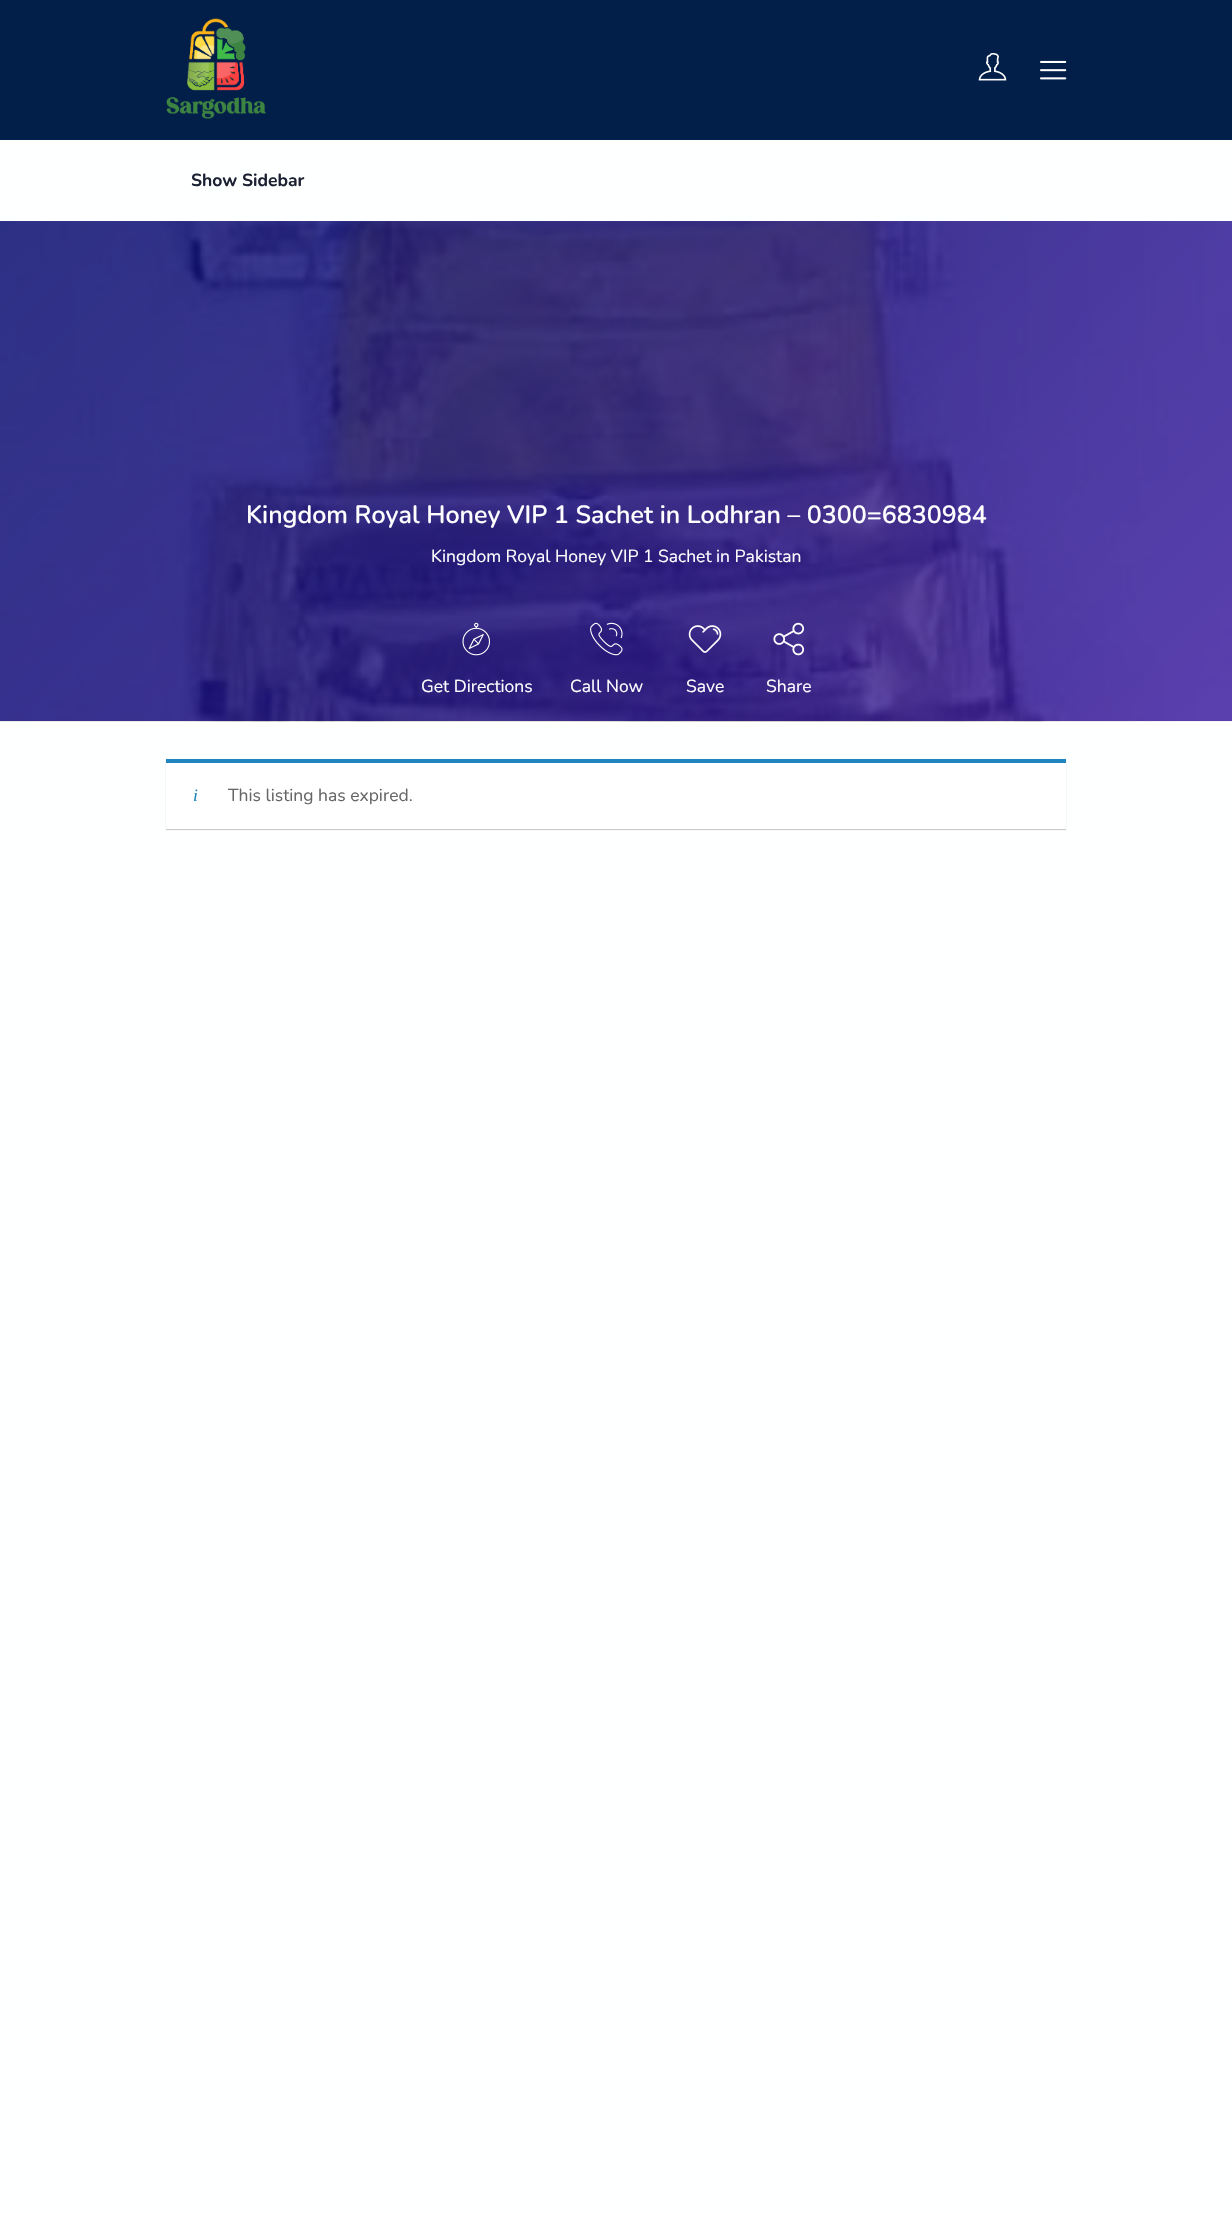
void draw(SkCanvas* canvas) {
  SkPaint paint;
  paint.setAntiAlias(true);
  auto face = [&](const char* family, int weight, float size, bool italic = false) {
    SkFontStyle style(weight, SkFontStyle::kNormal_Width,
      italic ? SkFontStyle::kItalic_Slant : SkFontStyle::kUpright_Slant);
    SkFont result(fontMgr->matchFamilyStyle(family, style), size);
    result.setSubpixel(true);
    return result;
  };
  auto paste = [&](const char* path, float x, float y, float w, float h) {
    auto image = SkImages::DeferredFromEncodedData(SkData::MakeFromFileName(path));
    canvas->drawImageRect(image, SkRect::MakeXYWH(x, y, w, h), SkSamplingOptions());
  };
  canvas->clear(0xfffeffff);
  paint.setColor(0xff021f4a);
  canvas->drawRect(SkRect::MakeXYWH(0, 0, 1232, 140), paint);
  paste("img/1.png", 166, 18, 100, 101);
  paste("img/2.png", 978, 53, 29, 28);
  paste("img/3.png", 1040, 60, 27, 20);
  paste("img/4.png", 0, 221, 1232, 501);
  {
    const SkColor colors[] = {0xcc080e7b, 0xcc3c1da8};
    const float stops[] = {0, 1};
    const SkPoint ends[] = {{183, 38}, {1049, 904}};
    paint.setShader(SkGradientShader::MakeLinear(ends, colors, stops, 2, SkTileMode::kClamp));
    paint.setAlpha(255);
  }
  canvas->drawRect(SkRect::MakeXYWH(0, 221, 1232, 500), paint);
  paste("img/5.png", 462, 622, 28, 34);
  paste("img/6.png", 590, 622, 33, 34);
  paste("img/7.png", 688, 625, 34, 28);
  paste("img/8.png", 773, 622, 32, 34);
  paint.setShader(nullptr);
  paint.setColor(0x33000000);
  paint.setMaskFilter(SkMaskFilter::MakeBlur(kNormal_SkBlurStyle, 0.5f));
  canvas->drawRect(SkRect::MakeXYWH(166, 760, 900, 70), paint);
  paint.setMaskFilter(nullptr);
  paint.setColor(0xffffffff);
  canvas->drawRect(SkRect::MakeXYWH(166, 763, 900, 66), paint);
  paint.setColor(0xff1e85be);
  canvas->drawRect(SkRect::MakeXYWH(166, 759, 900, 4), paint);
  auto f0 = face("Nunito", 700, 17.5f);
  paint.setColor(0xff1b2032);
  canvas->drawString("Show Sidebar", 191, 186, f0, paint);
  auto f1 = face("Nunito", 600, 25);
  paint.setColor(0xffffffff);
  canvas->drawString("Kingdom Royal Honey VIP 1 Sachet in Lodhran – 0300=6830984", 246, 523, f1, paint);
  auto f2 = face("Nunito", 400, 17.5f);
  {
    const struct { const char* s; float x, y; } items[] = {
      {"Kingdom Royal Honey VIP 1 Sachet in Pakistan", 431, 562},
      {"Get Directions", 421, 692},
      {"Call Now", 570, 692},
      {"Save", 686, 692},
      {"Share", 766, 692},
    };
    for (auto [s, x, y] : items) {
      canvas->drawString(s, x, y, f2, paint);
    }
  }
  auto f3 = face("Liberation Serif", 400, 17.5f, true);
  paint.setColor(0xff1e85be);
  canvas->drawString("i", 193, 801, f3, paint);
  paint.setColor(0xff666666);
  canvas->drawString("This listing has expired.", 228, 801, f2, paint);
}
